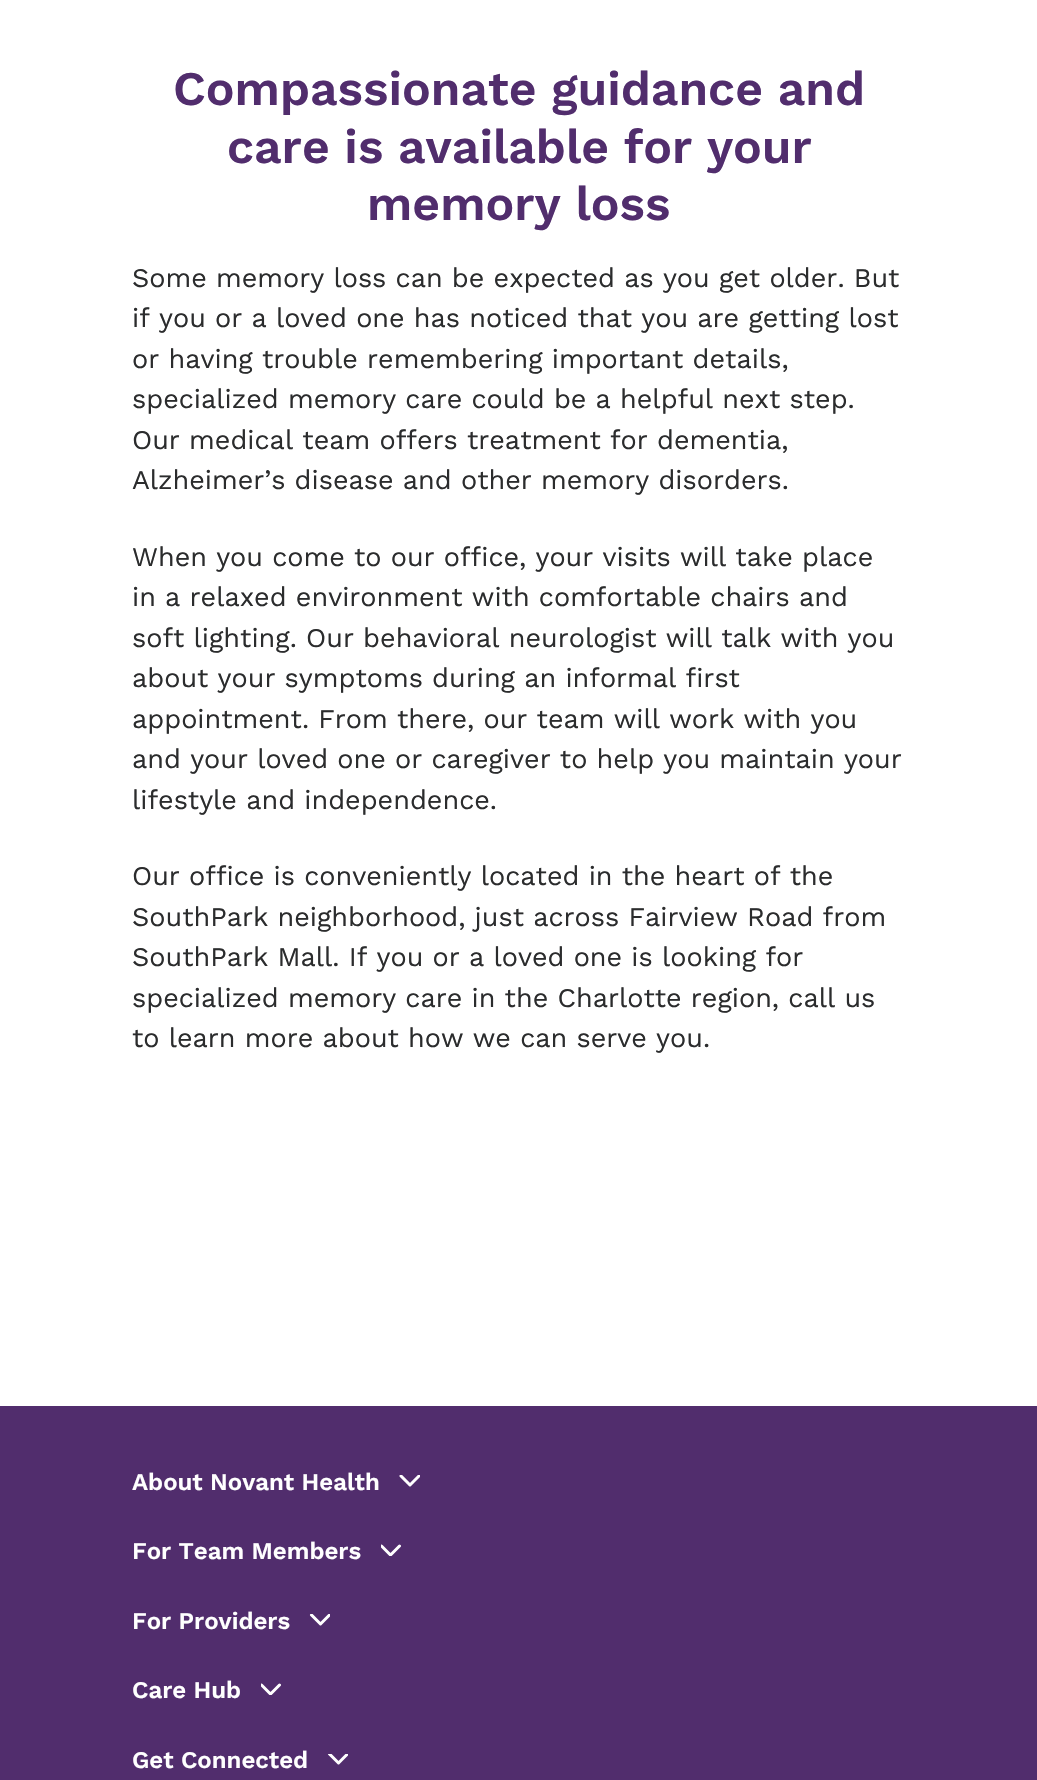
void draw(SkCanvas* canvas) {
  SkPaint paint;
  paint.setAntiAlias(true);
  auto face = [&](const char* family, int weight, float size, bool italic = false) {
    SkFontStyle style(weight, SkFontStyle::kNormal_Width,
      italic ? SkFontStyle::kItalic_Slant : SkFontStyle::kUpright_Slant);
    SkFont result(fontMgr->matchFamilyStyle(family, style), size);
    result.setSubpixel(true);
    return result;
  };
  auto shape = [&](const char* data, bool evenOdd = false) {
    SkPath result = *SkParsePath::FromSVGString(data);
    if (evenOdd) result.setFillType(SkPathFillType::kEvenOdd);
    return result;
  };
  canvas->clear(0xffffffff);
  paint.setColor(0xff512d6d);
  canvas->drawRect(SkRect::MakeXYWH(0, 1406, 1037, 374), paint);
  canvas->save();
  canvas->clipRect(SkRect::MakeXYWH(399, 1475, 21, 12));
  paint.setStroke(true);
  paint.setStrokeWidth(3);
  paint.setStrokeCap(SkPaint::kRound_Cap);
  paint.setStrokeJoin(SkPaint::kRound_Join);
  paint.setColor(0xffffffff);
  canvas->drawPath(shape("M401 1476L410 1485L419 1476"), paint);
  canvas->restore();
  canvas->save();
  canvas->clipRect(SkRect::MakeXYWH(381, 1544, 21, 12));
  canvas->drawPath(shape("M381.5 1546L390.5 1555L399.5 1546"), paint);
  canvas->restore();
  canvas->save();
  canvas->clipRect(SkRect::MakeXYWH(309, 1614, 21, 12));
  canvas->drawPath(shape("M311.5 1615L320.5 1624L329.5 1615"), paint);
  canvas->restore();
  canvas->save();
  canvas->clipRect(SkRect::MakeXYWH(261, 1683, 21, 12));
  canvas->drawPath(shape("M261.5 1685L270.5 1694L279.5 1685"), paint);
  canvas->restore();
  canvas->save();
  canvas->clipRect(SkRect::MakeXYWH(327, 1754, 21, 12));
  canvas->drawPath(shape("M329.5 1754L338.5 1763L347.5 1754"), paint);
  canvas->restore();
  auto f0 = face("Work Sans", 600, 48);
  paint.setStroke(false);
  paint.setColor(0xff512d6d);
  {
    const struct { const char* s; float x, y; } items[] = {
      {"Compassionate guidance and", 173, 105},
      {"care is available for your", 227, 163},
      {"memory loss", 367, 220},
    };
    for (auto [s, x, y] : items) {
      canvas->drawString(s, x, y, f0, paint);
    }
  }
  auto f1 = face("Work Sans", 400, 27);
  paint.setColor(0xff2b2c2d);
  {
    const struct { const char* s; float x, y; } items[] = {
      {"Some memory loss can be expected as you get older. But", 132, 287},
      {"if you or a loved one has noticed that you are getting lost", 132, 327},
      {"or having trouble remembering important details,", 132, 368},
      {"specialized memory care could be a helpful next step.", 132, 408},
      {"Our medical team offers treatment for dementia,", 132, 449},
      {"Alzheimer’s disease and other memory disorders.", 132, 489},
      {"When you come to our office, your visits will take place", 132, 566},
      {"in a relaxed environment with comfortable chairs and", 132, 606},
      {"soft lighting. Our behavioral neurologist will talk with you", 132, 647},
      {"about your symptoms during an informal first", 132, 687},
      {"appointment. From there, our team will work with you", 132, 728},
      {"and your loved one or caregiver to help you maintain your", 132, 768},
      {"lifestyle and independence.", 132, 809},
      {"Our office is conveniently located in the heart of the", 132, 885},
      {"SouthPark neighborhood, just across Fairview Road from", 132, 926},
      {"SouthPark Mall. If you or a loved one is looking for", 132, 966},
      {"specialized memory care in the Charlotte region, call us", 132, 1007},
      {"to learn more about how we can serve you.", 132, 1047},
    };
    for (auto [s, x, y] : items) {
      canvas->drawString(s, x, y, f1, paint);
    }
  }
  auto f2 = face("Work Sans", 600, 24);
  paint.setColor(0xffffffff);
  {
    const struct { const char* s; float x, y; } items[] = {
      {"About Novant Health", 132, 1490},
      {"For Team Members", 132, 1559},
      {"For Providers", 132, 1629},
      {"Care Hub", 132, 1698},
      {"Get Connected", 132, 1768},
    };
    for (auto [s, x, y] : items) {
      canvas->drawString(s, x, y, f2, paint);
    }
  }
}
